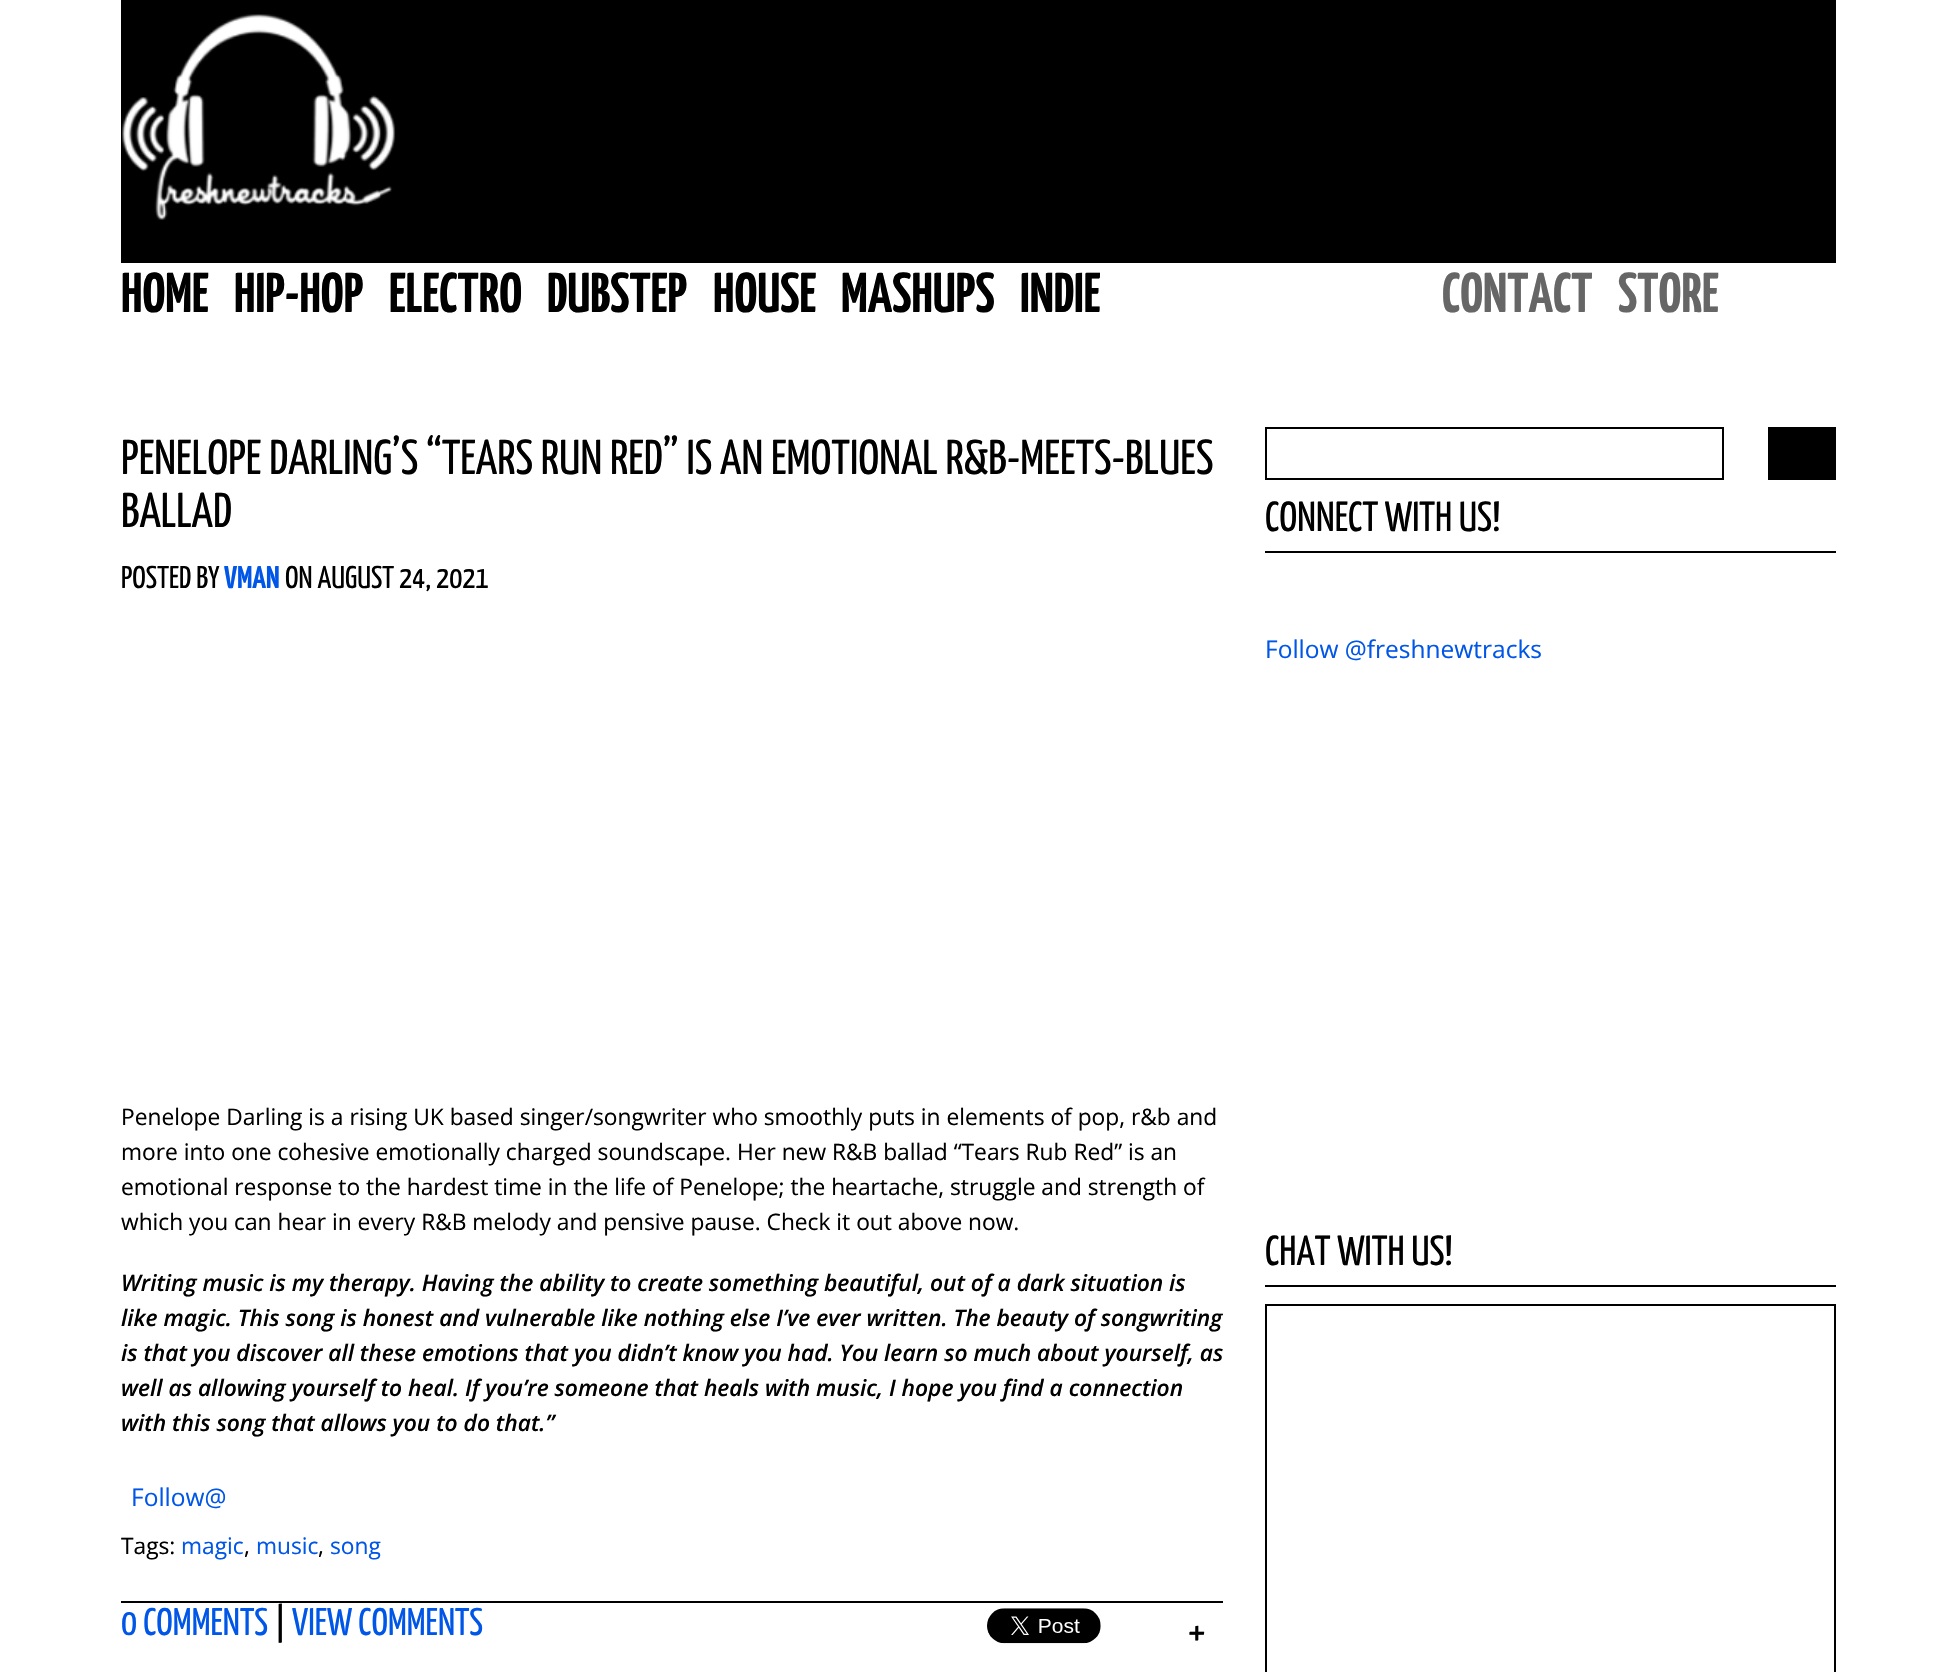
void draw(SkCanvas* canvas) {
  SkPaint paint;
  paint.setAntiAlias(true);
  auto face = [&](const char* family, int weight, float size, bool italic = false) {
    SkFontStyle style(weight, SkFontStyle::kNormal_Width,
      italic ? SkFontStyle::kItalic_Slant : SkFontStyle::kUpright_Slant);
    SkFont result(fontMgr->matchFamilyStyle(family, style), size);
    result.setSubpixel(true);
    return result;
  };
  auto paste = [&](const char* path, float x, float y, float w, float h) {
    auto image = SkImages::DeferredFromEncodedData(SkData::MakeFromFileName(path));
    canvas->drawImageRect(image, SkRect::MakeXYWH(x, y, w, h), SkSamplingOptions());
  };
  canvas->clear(0xffffffff);
  paint.setColor(0xff000000);
  canvas->drawRect(SkRect::MakeXYWH(121, 0, 1715, 263), paint);
  paste("img/1.png", 122, 14, 274, 206);
  canvas->drawRect(SkRect::MakeXYWH(121, 1601, 1102, 2), paint);
  paste("img/2.png", 987, 1608, 114, 36);
  paint.setStroke(true);
  paint.setStrokeWidth(2);
  canvas->drawRect(SkRect::MakeXYWH(1266, 428, 457, 51), paint);
  paint.setStroke(false);
  {
    const struct { float x, y, w, h; SkColor color; } items[] = {
      {1768, 427, 68, 53, 0xff000000},
      {1265, 551, 571, 2, 0xff000000},
      {1265, 1285, 571, 2, 0xff000000},
    };
    for (auto [x, y, w, h, color] : items) {
      paint.setColor(color);
      canvas->drawRect(SkRect::MakeXYWH(x, y, w, h), paint);
    }
  }
  paint.setStroke(true);
  canvas->drawRect(SkRect::MakeXYWH(1266, 1305, 569, 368), paint);
  auto f0 = face("Yanone Kaffeesatz", 700, 56);
  paint.setStroke(false);
  {
    const struct { const char* s; float x, y; } items[] = {
      {"HOME", 121, 312},
      {"HIP-HOP", 234, 312},
      {"ELECTRO", 389, 312},
      {"DUBSTEP", 547, 312},
      {"HOUSE", 713, 312},
      {"MASHUPS", 841, 312},
      {"INDIE", 1020, 312},
    };
    for (auto [s, x, y] : items) {
      canvas->drawString(s, x, y, f0, paint);
    }
  }
  paint.setColor(0xff666666);
  canvas->drawString("CONTACT", 1442, 312, f0, paint);
  canvas->drawString("STORE", 1618, 312, f0, paint);
  auto f1 = face("Yanone Kaffeesatz", 400, 49);
  paint.setColor(0xff000000);
  canvas->drawString("PENELOPE DARLING’S “TEARS RUN RED” IS AN EMOTIONAL R&B-MEETS-BLUES", 121, 474, f1, paint);
  canvas->drawString("BALLAD", 121, 527, f1, paint);
  auto f2 = face("Yanone Kaffeesatz", 400, 31.5f);
  canvas->drawString("POSTED BY", 121, 588, f2, paint);
  auto f3 = face("Yanone Kaffeesatz", 700, 31.5f);
  paint.setColor(0xff0056e7);
  canvas->drawString("VMAN", 224, 588, f3, paint);
  paint.setColor(0xff000000);
  canvas->drawString("ON AUGUST 24, 2021", 285, 588, f2, paint);
  auto f4 = face("Open Sans", 400, 22.75f);
  {
    const struct { const char* s; float x, y; } items[] = {
      {"Penelope Darling is a rising UK based singer/songwriter who smoothly puts in elements of pop, r&b and", 121, 1125},
      {"more into one cohesive emotionally charged soundscape. Her new R&B ballad “Tears Rub Red” is an", 121, 1160},
      {"emotional response to the hardest time in the life of Penelope; the heartache, struggle and strength of", 121, 1195},
      {"which you can hear in every R&B melody and pensive pause. Check it out above now.", 121, 1230},
    };
    for (auto [s, x, y] : items) {
      canvas->drawString(s, x, y, f4, paint);
    }
  }
  auto f5 = face("Open Sans", 600, 22.75f, true);
  {
    const struct { const char* s; float x, y; } items[] = {
      {"Writing music is my therapy. Having the ability to create something beautiful, out of a dark situation is", 121, 1291},
      {"like magic. This song is honest and vulnerable like nothing else I’ve ever written. The beauty of songwriting", 121, 1326},
      {"is that you discover all these emotions that you didn’t know you had. You learn so much about yourself, as", 121, 1361},
      {"well as allowing yourself to heal. If you’re someone that heals with music, I hope you find a connection", 121, 1396},
      {"with this song that allows you to do that.”", 121, 1431},
    };
    for (auto [s, x, y] : items) {
      canvas->drawString(s, x, y, f5, paint);
    }
  }
  auto f6 = face("Open Sans", 400, 24.5f);
  paint.setColor(0xff0056e7);
  canvas->drawString("Follow@", 131, 1506, f6, paint);
  paint.setColor(0xff000000);
  canvas->drawString("Tags:", 121, 1554, f4, paint);
  paint.setColor(0xff0056e7);
  canvas->drawString("magic", 181, 1554, f4, paint);
  paint.setColor(0xff000000);
  canvas->drawString(",", 244, 1554, f4, paint);
  paint.setColor(0xff0056e7);
  canvas->drawString("music", 256, 1554, f4, paint);
  paint.setColor(0xff000000);
  canvas->drawString(",", 318, 1554, f4, paint);
  paint.setColor(0xff0056e7);
  canvas->drawString("song", 330, 1554, f4, paint);
  auto f7 = face("Yanone Kaffeesatz", 400, 38.5f);
  canvas->drawString("0 COMMENTS", 121, 1635, f7, paint);
  paint.setColor(0xff000000);
  canvas->drawString("|", 274, 1635, f7, paint);
  paint.setColor(0xff0056e7);
  canvas->drawString("VIEW COMMENTS", 292, 1635, f7, paint);
  auto f8 = face("Yanone Kaffeesatz", 400, 42);
  paint.setColor(0xff000000);
  canvas->drawString("+", 1188, 1645, f8, paint);
  canvas->drawString("CONNECT WITH US!", 1265, 531, f8, paint);
  paint.setColor(0xff0056e7);
  canvas->drawString("Follow @freshnewtracks", 1265, 658, f6, paint);
  paint.setColor(0xff000000);
  canvas->drawString("CHAT WITH US!", 1265, 1265, f8, paint);
}
